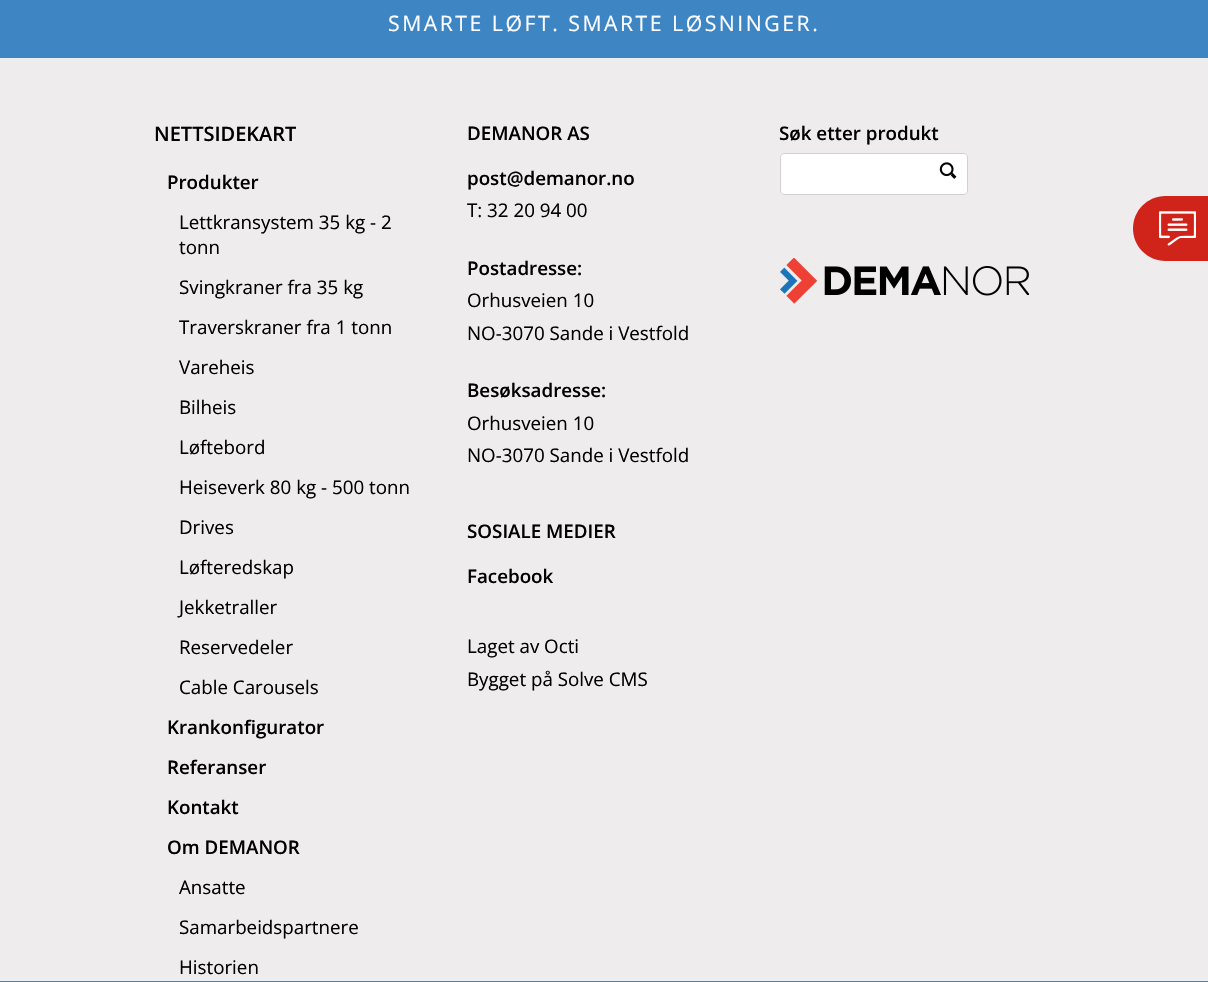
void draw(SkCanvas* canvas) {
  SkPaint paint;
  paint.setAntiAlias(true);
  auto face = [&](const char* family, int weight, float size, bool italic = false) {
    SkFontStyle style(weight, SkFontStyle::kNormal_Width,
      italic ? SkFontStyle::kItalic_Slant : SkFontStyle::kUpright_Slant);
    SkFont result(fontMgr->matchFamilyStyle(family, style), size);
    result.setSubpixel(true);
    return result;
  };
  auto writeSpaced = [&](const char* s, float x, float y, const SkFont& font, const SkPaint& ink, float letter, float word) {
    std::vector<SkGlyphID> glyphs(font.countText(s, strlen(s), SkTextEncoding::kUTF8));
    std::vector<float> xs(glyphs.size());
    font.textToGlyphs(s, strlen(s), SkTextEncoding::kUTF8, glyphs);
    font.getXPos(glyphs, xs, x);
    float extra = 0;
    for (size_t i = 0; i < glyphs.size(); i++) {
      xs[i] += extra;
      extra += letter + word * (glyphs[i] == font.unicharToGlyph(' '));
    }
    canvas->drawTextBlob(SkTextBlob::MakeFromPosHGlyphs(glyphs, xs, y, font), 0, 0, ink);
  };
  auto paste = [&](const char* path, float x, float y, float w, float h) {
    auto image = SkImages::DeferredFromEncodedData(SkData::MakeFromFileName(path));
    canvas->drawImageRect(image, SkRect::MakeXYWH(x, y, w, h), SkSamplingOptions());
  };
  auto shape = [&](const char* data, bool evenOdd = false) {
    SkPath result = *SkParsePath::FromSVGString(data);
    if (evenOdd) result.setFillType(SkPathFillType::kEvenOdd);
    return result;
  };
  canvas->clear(0xff3e86c3);
  paint.setColor(0xffeeecec);
  canvas->drawRect(SkRect::MakeXYWH(0, 58, 1208, 923), paint);
  paint.setColor(0xffffffff);
  canvas->drawRoundRect(SkRect::MakeXYWH(780, 153, 188, 42), 4, 4, paint);
  paste("img/1.png", 939, 162, 18, 17);
  paint.setStroke(true);
  paint.setStrokeWidth(1);
  paint.setColor(0xffd1d1d1);
  canvas->drawRoundRect(SkRect::MakeXYWH(780.5f, 153.5f, 187, 41), 3.5f, 3.5f, paint);
  paste("img/2.png", 780, 258, 249, 46);
  paint.setStroke(false);
  paint.setColor(0xffd02319);
  canvas->drawPath(shape("M1165.5 196H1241V261H1165.5C1147.5 261 1133 246.5 1133 228.5C1133 210.5 1147.5 196 1165.5 196Z"), paint);
  paste("img/3.png", 1159, 211, 37, 35);
  auto f0 = face("Open Sans", 400, 21.25f);
  paint.setColor(0xffffffff);
  writeSpaced("SMARTE LØFT. SMARTE LØSNINGER.", 388, 31, f0, paint, 2.5f, 0);
  auto f1 = face("Open Sans", 600, 20);
  paint.setColor(0xff000000);
  canvas->drawString("NETTSIDEKART", 154, 141, f1, paint);
  auto f2 = face("Open Sans", 600, 18.75f);
  canvas->drawString("Produkter", 167, 189, f2, paint);
  auto f3 = face("Open Sans", 400, 18.75f);
  {
    const struct { const char* s; float x, y; } items[] = {
      {"Lettkransystem 35 kg - 2", 179, 229},
      {"tonn", 179, 254},
      {"Svingkraner fra 35 kg", 179, 294},
      {"Traverskraner fra 1 tonn", 179, 334},
      {"Vareheis", 179, 374},
      {"Bilheis", 179, 414},
      {"Løftebord", 179, 454},
      {"Heiseverk 80 kg - 500 tonn", 179, 494},
      {"Drives", 179, 534},
      {"Løfteredskap", 179, 574},
      {"Jekketraller", 179, 614},
      {"Reservedeler", 179, 654},
      {"Cable Carousels", 179, 694},
    };
    for (auto [s, x, y] : items) {
      canvas->drawString(s, x, y, f3, paint);
    }
  }
  {
    const struct { const char* s; float x, y; } items[] = {
      {"Krankonfigurator", 167, 734},
      {"Referanser", 167, 774},
      {"Kontakt", 167, 814},
      {"Om DEMANOR", 167, 854},
    };
    for (auto [s, x, y] : items) {
      canvas->drawString(s, x, y, f2, paint);
    }
  }
  {
    const struct { const char* s; float x, y; } items[] = {
      {"Ansatte", 179, 894},
      {"Samarbeidspartnere", 179, 934},
      {"Historien", 179, 974},
    };
    for (auto [s, x, y] : items) {
      canvas->drawString(s, x, y, f3, paint);
    }
  }
  canvas->drawString("DEMANOR AS", 467, 140, f2, paint);
  canvas->drawString("post@demanor.no", 467, 185, f2, paint);
  canvas->drawString("T: 32 20 94 00", 467, 217, f3, paint);
  canvas->drawString("Postadresse:", 467, 275, f2, paint);
  canvas->drawString("Orhusveien 10", 467, 307, f3, paint);
  canvas->drawString("NO-3070 Sande i Vestfold", 467, 340, f3, paint);
  canvas->drawString("Besøksadresse:", 467, 397, f2, paint);
  canvas->drawString("Orhusveien 10", 467, 430, f3, paint);
  canvas->drawString("NO-3070 Sande i Vestfold", 467, 462, f3, paint);
  canvas->drawString("SOSIALE MEDIER", 467, 538, f2, paint);
  canvas->drawString("Facebook", 467, 583, f2, paint);
  canvas->drawString("Laget av Octi", 467, 653, f3, paint);
  canvas->drawString("Bygget på Solve CMS", 467, 686, f3, paint);
  canvas->drawString("Søk etter produkt", 779, 140, f2, paint);
}
